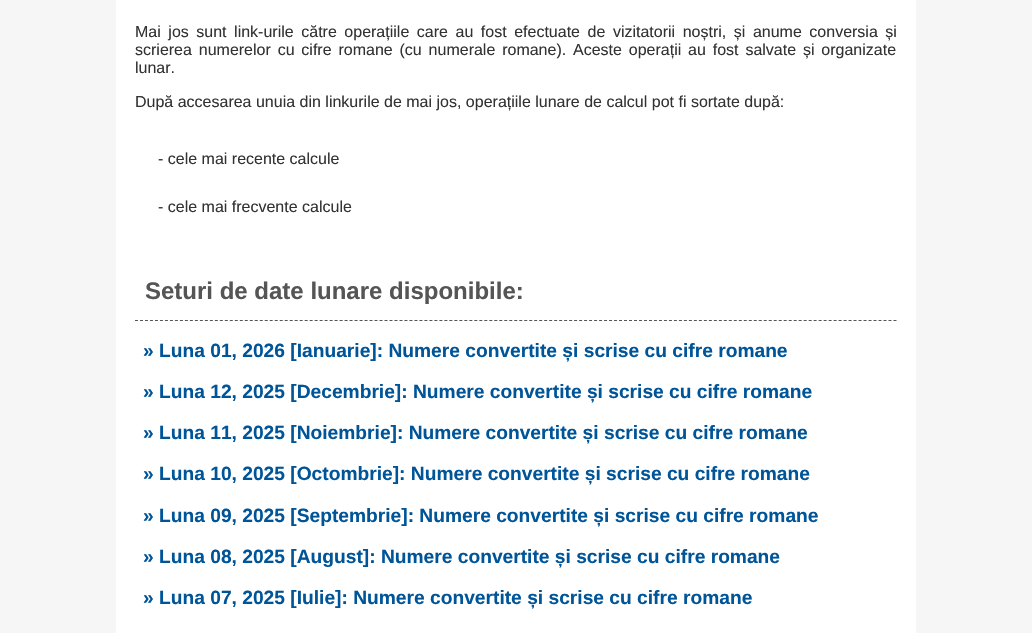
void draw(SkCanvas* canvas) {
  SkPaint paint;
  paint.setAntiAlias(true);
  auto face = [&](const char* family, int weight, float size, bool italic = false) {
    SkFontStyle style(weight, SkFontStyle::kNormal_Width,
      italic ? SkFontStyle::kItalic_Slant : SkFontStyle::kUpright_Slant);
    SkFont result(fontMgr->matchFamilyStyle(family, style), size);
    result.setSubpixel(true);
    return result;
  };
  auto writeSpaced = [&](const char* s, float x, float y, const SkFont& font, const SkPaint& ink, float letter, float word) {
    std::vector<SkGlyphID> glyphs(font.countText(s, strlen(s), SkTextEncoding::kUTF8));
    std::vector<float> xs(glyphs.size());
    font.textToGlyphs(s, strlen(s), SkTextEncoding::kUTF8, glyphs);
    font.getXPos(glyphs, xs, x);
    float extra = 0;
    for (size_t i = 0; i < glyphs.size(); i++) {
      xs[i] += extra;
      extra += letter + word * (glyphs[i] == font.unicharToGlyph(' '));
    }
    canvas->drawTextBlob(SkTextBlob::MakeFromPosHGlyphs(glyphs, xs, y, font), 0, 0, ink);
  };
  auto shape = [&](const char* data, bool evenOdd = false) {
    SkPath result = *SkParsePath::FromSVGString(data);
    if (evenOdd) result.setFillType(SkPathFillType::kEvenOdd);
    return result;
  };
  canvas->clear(0xfff6f6f6);
  paint.setColor(0xffffffff);
  canvas->drawRect(SkRect::MakeXYWH(116, 0, 800, 633), paint);
  paint.setStroke(true);
  paint.setStrokeWidth(1);
  paint.setColor(0xff555555);
  paint.setPathEffect(SkDashPathEffect::Make({{3, 1.99f}}, 0));
  canvas->drawPath(shape("M135 320.5H897"), paint);
  paint.setPathEffect(nullptr);
  auto f0 = face("Liberation Sans", 400, 16);
  paint.setStroke(false);
  paint.setColor(0xff333333);
  writeSpaced("Mai jos sunt link-urile către operațiile care au fost efectuate de vizitatorii noștri, și anume conversia și", 135, 37, f0, paint, 0, 3.1f);
  writeSpaced("scrierea numerelor cu cifre romane (cu numerale romane). Aceste operații au fost salvate și organizate", 135, 55, f0, paint, 0, 2.4f);
  {
    const struct { const char* s; float x, y; } items[] = {
      {"lunar.", 135, 73},
      {"După accesarea unuia din linkurile de mai jos, operațiile lunare de calcul pot fi sortate după:", 135, 107},
      {"- cele mai recente calcule", 158, 164},
      {"- cele mai frecvente calcule", 158, 212},
    };
    for (auto [s, x, y] : items) {
      canvas->drawString(s, x, y, f0, paint);
    }
  }
  auto f1 = face("Liberation Sans", 700, 24);
  paint.setColor(0xff555555);
  canvas->drawString("Seturi de date lunare disponibile:", 145, 299, f1, paint);
  auto f2 = face("Liberation Sans", 700, 19.2f);
  paint.setColor(0xff005599);
  {
    const struct { const char* s; float x, y; } items[] = {
      {"» Luna 01, 2026 [Ianuarie]: Numere convertite și scrise cu cifre romane", 143, 357},
      {"» Luna 12, 2025 [Decembrie]: Numere convertite și scrise cu cifre romane", 143, 398},
      {"» Luna 11, 2025 [Noiembrie]: Numere convertite și scrise cu cifre romane", 143, 439},
      {"» Luna 10, 2025 [Octombrie]: Numere convertite și scrise cu cifre romane", 143, 480},
      {"» Luna 09, 2025 [Septembrie]: Numere convertite și scrise cu cifre romane", 143, 522},
      {"» Luna 08, 2025 [August]: Numere convertite și scrise cu cifre romane", 143, 563},
      {"» Luna 07, 2025 [Iulie]: Numere convertite și scrise cu cifre romane", 143, 604},
    };
    for (auto [s, x, y] : items) {
      canvas->drawString(s, x, y, f2, paint);
    }
  }
}
